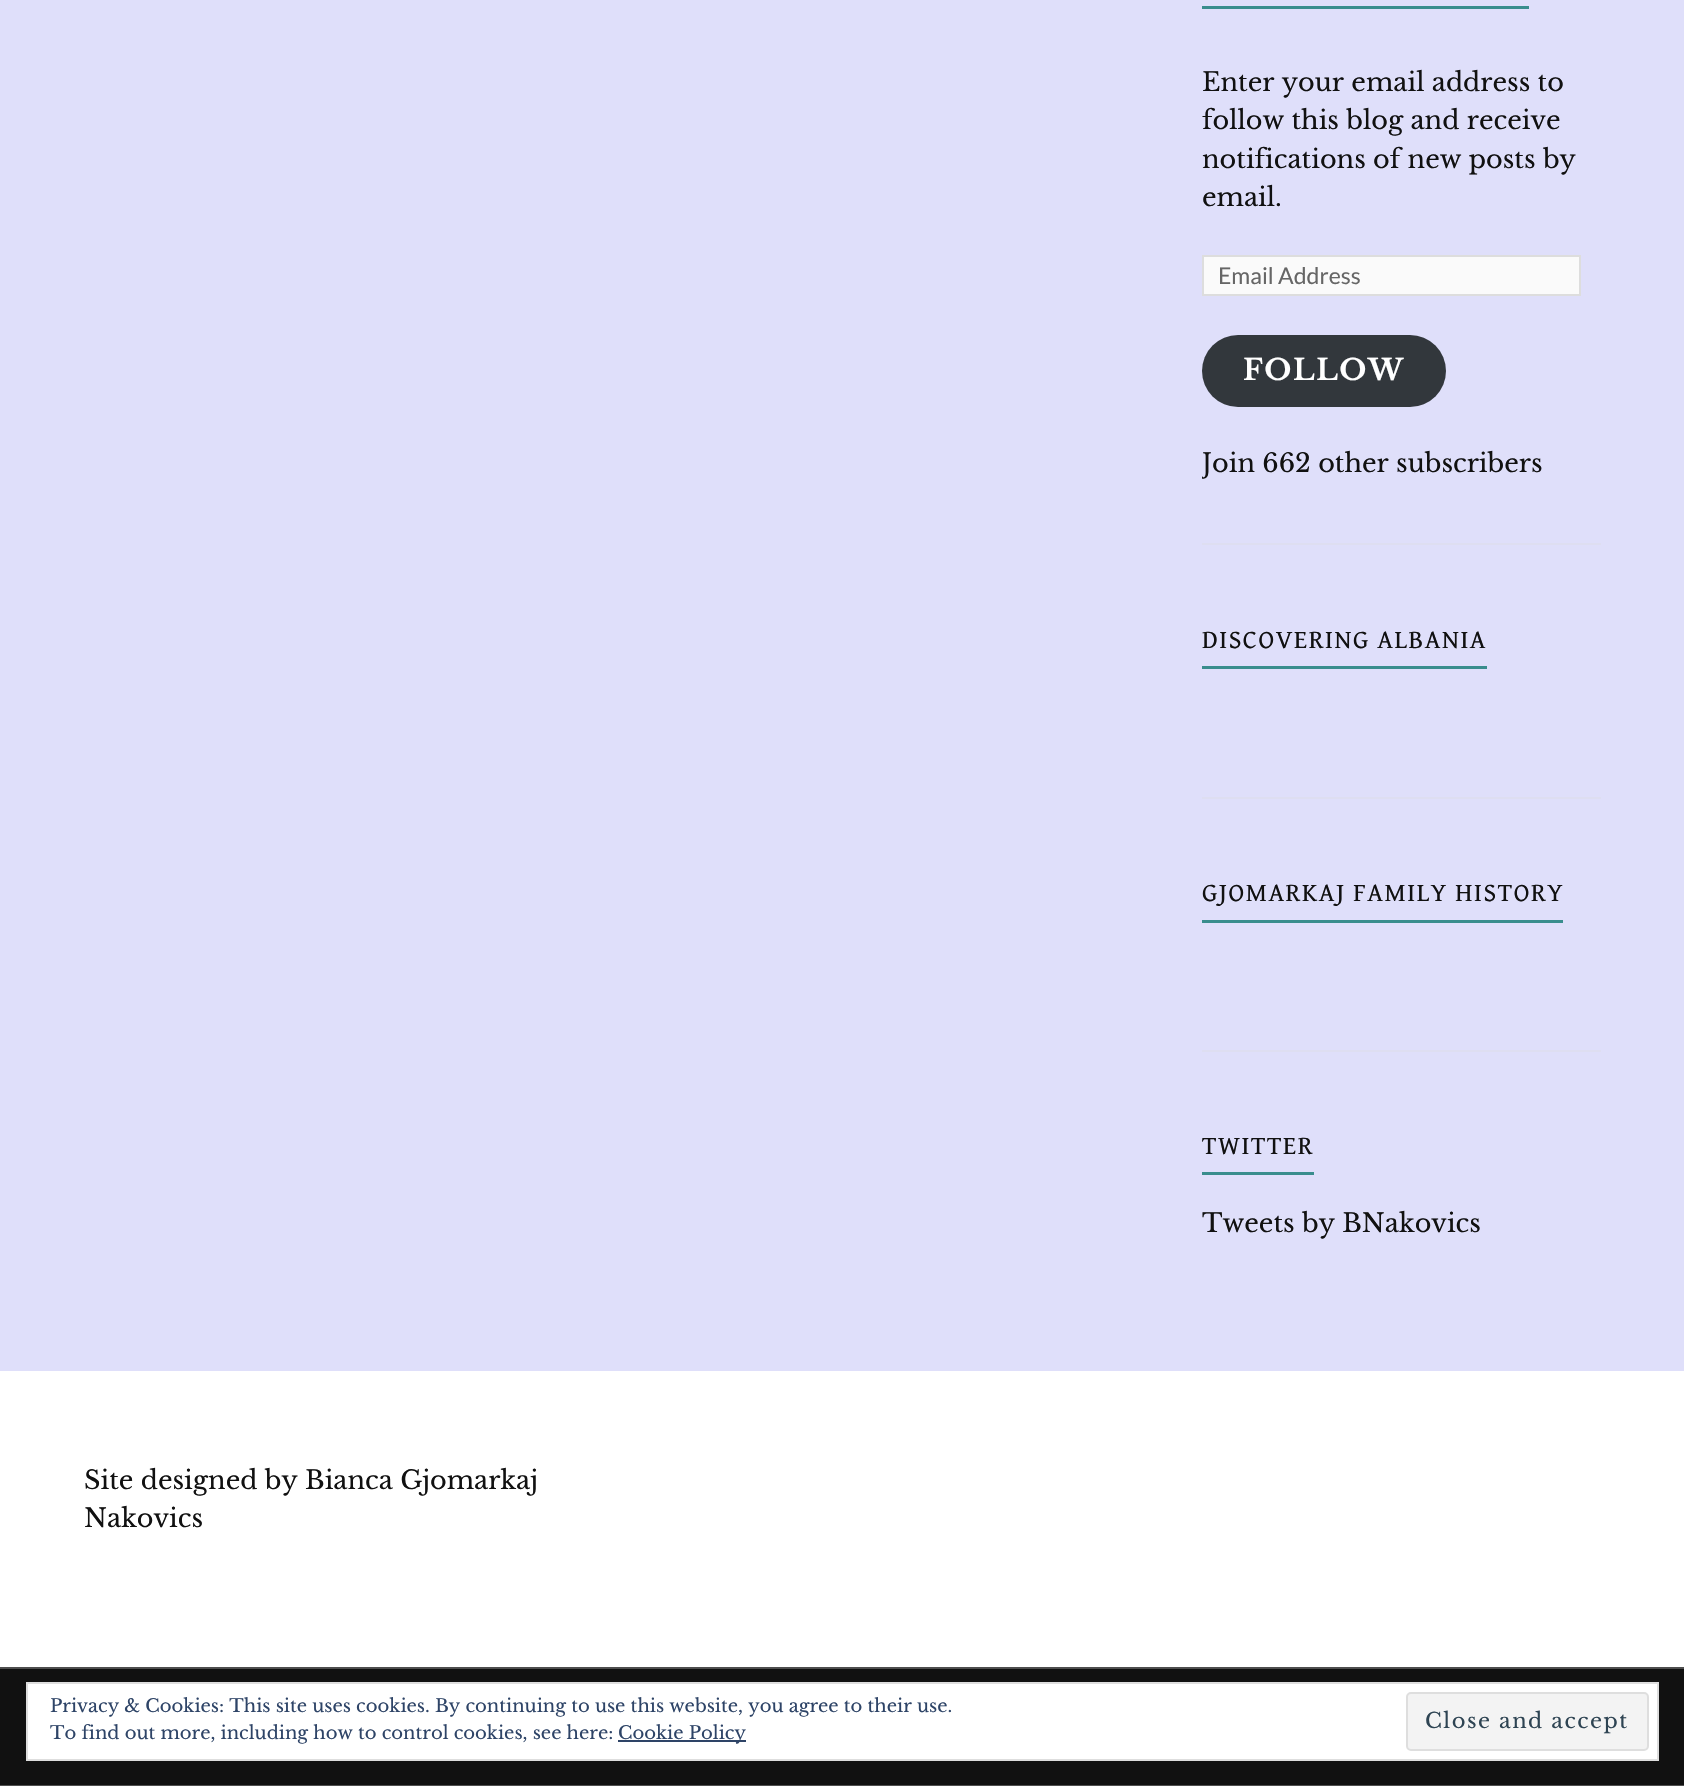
void draw(SkCanvas* canvas) {
  SkPaint paint;
  paint.setAntiAlias(true);
  auto face = [&](const char* family, int weight, float size, bool italic = false) {
    SkFontStyle style(weight, SkFontStyle::kNormal_Width,
      italic ? SkFontStyle::kItalic_Slant : SkFontStyle::kUpright_Slant);
    SkFont result(fontMgr->matchFamilyStyle(family, style), size);
    result.setSubpixel(true);
    return result;
  };
  auto writeSpaced = [&](const char* s, float x, float y, const SkFont& font, const SkPaint& ink, float letter, float word) {
    std::vector<SkGlyphID> glyphs(font.countText(s, strlen(s), SkTextEncoding::kUTF8));
    std::vector<float> xs(glyphs.size());
    font.textToGlyphs(s, strlen(s), SkTextEncoding::kUTF8, glyphs);
    font.getXPos(glyphs, xs, x);
    float extra = 0;
    for (size_t i = 0; i < glyphs.size(); i++) {
      xs[i] += extra;
      extra += letter + word * (glyphs[i] == font.unicharToGlyph(' '));
    }
    canvas->drawTextBlob(SkTextBlob::MakeFromPosHGlyphs(glyphs, xs, y, font), 0, 0, ink);
  };
  canvas->clear(0xffdfdffa);
  paint.setColor(0xff398d8d);
  canvas->drawRect(SkRect::MakeXYWH(1202, 6, 327, 3), paint);
  paint.setColor(0xfffafafa);
  canvas->drawRect(SkRect::MakeXYWH(1203, 256, 377, 39), paint);
  paint.setStroke(true);
  paint.setStrokeWidth(2);
  paint.setColor(0xffdddddd);
  canvas->drawRect(SkRect::MakeXYWH(1203, 256, 377, 39), paint);
  paint.setStroke(false);
  paint.setColor(0xff32373c);
  canvas->drawRoundRect(SkRect::MakeXYWH(1202, 335, 244, 72), 36, 36, paint);
  {
    const struct { float x, y, w, h; SkColor color; } items[] = {
      {1202, 543, 399, 2, 0xffdedef1},
      {1202, 666, 285, 3, 0xff398d8d},
      {1202, 797, 399, 2, 0xffdedef1},
      {1202, 920, 361, 3, 0xff398d8d},
      {1202, 1050, 399, 2, 0xffdedef1},
      {1202, 1172, 112, 3, 0xff398d8d},
      {0, 1371, 1684, 296, 0xffffffff},
      {0, 1669, 1684, 116, 0xff111111},
      {0, 1667, 1684, 2, 0xff4e4e4e},
      {0, 1785, 1684, 1, 0xff4e4e4e},
    };
    for (auto [x, y, w, h, color] : items) {
      paint.setColor(color);
      canvas->drawRect(SkRect::MakeXYWH(x, y, w, h), paint);
    }
  }
  paint.setColor(0xffffffff);
  canvas->drawRect(SkRect::MakeXYWH(27, 1683, 1631, 77), paint);
  paint.setStroke(true);
  paint.setColor(0xffdedede);
  canvas->drawRect(SkRect::MakeXYWH(27, 1683, 1631, 77), paint);
  paint.setStroke(false);
  paint.setColor(0xff2e4467);
  canvas->drawRect(SkRect::MakeXYWH(618, 1740, 128, 2), paint);
  paint.setColor(0xfff3f3f3);
  canvas->drawRoundRect(SkRect::MakeXYWH(1407, 1693, 241, 57), 4, 4, paint);
  paint.setStroke(true);
  paint.setColor(0xffdedede);
  canvas->drawRoundRect(SkRect::MakeXYWH(1407, 1693, 241, 57), 4, 4, paint);
  auto f0 = face("Libre Baskerville", 400, 25.5f);
  paint.setStroke(false);
  paint.setColor(0xff111111);
  {
    const struct { const char* s; float x, y; } items[] = {
      {"Enter your email address to", 1202, 91},
      {"follow this blog and receive", 1202, 129},
      {"notifications of new posts by", 1202, 168},
      {"email.", 1202, 206},
    };
    for (auto [s, x, y] : items) {
      canvas->drawString(s, x, y, f0, paint);
    }
  }
  auto f1 = face("Lato", 400, 23);
  paint.setColor(0xff666666);
  canvas->drawString("Email Address", 1218, 284, f1, paint);
  auto f2 = face("Libre Baskerville", 700, 28.75f);
  paint.setColor(0xffffffff);
  writeSpaced("FOLLOW", 1243, 380, f2, paint, 1.5f, 0);
  canvas->save();
  canvas->clipRect(SkRect::MakeXYWH(1202, 0, 399, 483));
  paint.setColor(0xff111111);
  canvas->drawString("Join 662 other subscribers", 1202, 472, f0, paint);
  canvas->restore();
  auto f3 = face("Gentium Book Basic", 400, 25.9f);
  writeSpaced("DISCOVERING ALBANIA", 1202, 648, f3, paint, 1.5f, 0);
  writeSpaced("GJOMARKAJ FAMILY HISTORY", 1202, 901, f3, paint, 1.5f, 0);
  canvas->save();
  canvas->clipRect(SkRect::MakeXYWH(1202, 1052, 399, 192));
  writeSpaced("TWITTER", 1202, 1154, f3, paint, 1.5f, 0);
  canvas->restore();
  {
    const struct { const char* s; float x, y; } items[] = {
      {"Tweets by BNakovics", 1202, 1232},
      {"Site designed by Bianca Gjomarkaj", 84, 1489},
      {"Nakovics", 84, 1527},
    };
    for (auto [s, x, y] : items) {
      canvas->drawString(s, x, y, f0, paint);
    }
  }
  auto f4 = face("Libre Baskerville", 400, 18);
  paint.setColor(0xff2e4467);
  {
    const struct { const char* s; float x, y; } items[] = {
      {"Privacy & Cookies: This site uses cookies. By continuing to use this website, you agree to their use.", 50, 1712},
      {"To find out more, including how to control cookies, see here:", 50, 1739},
      {"Cookie Policy", 618, 1739},
    };
    for (auto [s, x, y] : items) {
      canvas->drawString(s, x, y, f4, paint);
    }
  }
  auto f5 = face("Libre Baskerville", 400, 21);
  paint.setColor(0xff2e4453);
  writeSpaced("Close and accept", 1425, 1728, f5, paint, 1.5f, 0);
}
